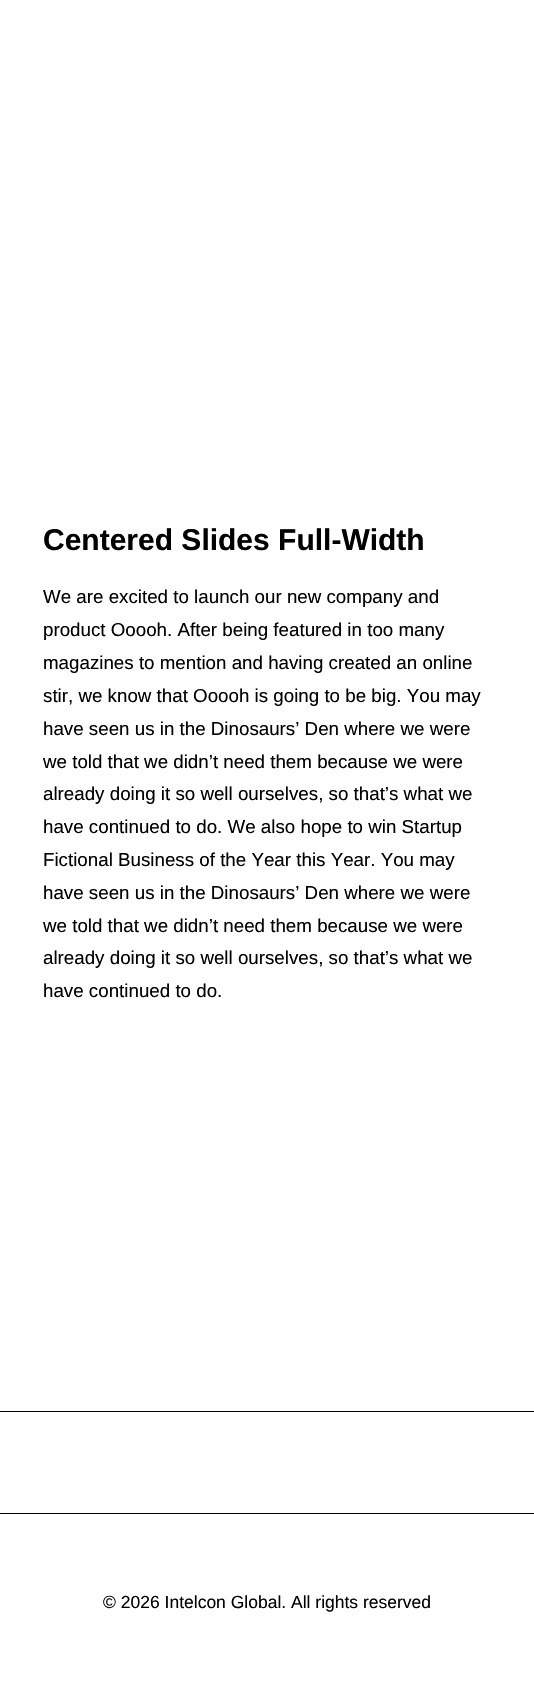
void draw(SkCanvas* canvas) {
  SkPaint paint;
  paint.setAntiAlias(true);
  auto face = [&](const char* family, int weight, float size, bool italic = false) {
    SkFontStyle style(weight, SkFontStyle::kNormal_Width,
      italic ? SkFontStyle::kItalic_Slant : SkFontStyle::kUpright_Slant);
    SkFont result(fontMgr->matchFamilyStyle(family, style), size);
    result.setSubpixel(true);
    return result;
  };
  canvas->clear(0xffffffff);
  paint.setStroke(true);
  paint.setStrokeWidth(1);
  paint.setColor(0xff000000);
  canvas->drawRect(SkRect::MakeXYWH(-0.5f, 1411.5f, 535, 102), paint);
  auto f0 = face("Liberation Sans", 700, 30);
  paint.setStroke(false);
  canvas->drawString("Centered Slides Full-Width", 43, 550, f0, paint);
  auto f1 = face("Liberation Sans", 400, 18.75f);
  {
    const struct { const char* s; float x, y; } items[] = {
      {"We are excited to launch our new company and", 43, 603},
      {"product Ooooh. After being featured in too many", 43, 636},
      {"magazines to mention and having created an online", 43, 669},
      {"stir, we know that Ooooh is going to be big. You may", 43, 702},
      {"have seen us in the Dinosaurs’ Den where we were", 43, 735},
      {"we told that we didn’t need them because we were", 43, 768},
      {"already doing it so well ourselves, so that’s what we", 43, 800},
      {"have continued to do. We also hope to win Startup", 43, 833},
      {"Fictional Business of the Year this Year. You may", 43, 866},
      {"have seen us in the Dinosaurs’ Den where we were", 43, 899},
      {"we told that we didn’t need them because we were", 43, 932},
      {"already doing it so well ourselves, so that’s what we", 43, 964},
      {"have continued to do.", 43, 997},
    };
    for (auto [s, x, y] : items) {
      canvas->drawString(s, x, y, f1, paint);
    }
  }
  auto f2 = face("Liberation Sans", 400, 17.5f);
  canvas->drawString("© 2026 Intelcon Global. All rights reserved", 103, 1608, f2, paint);
}
